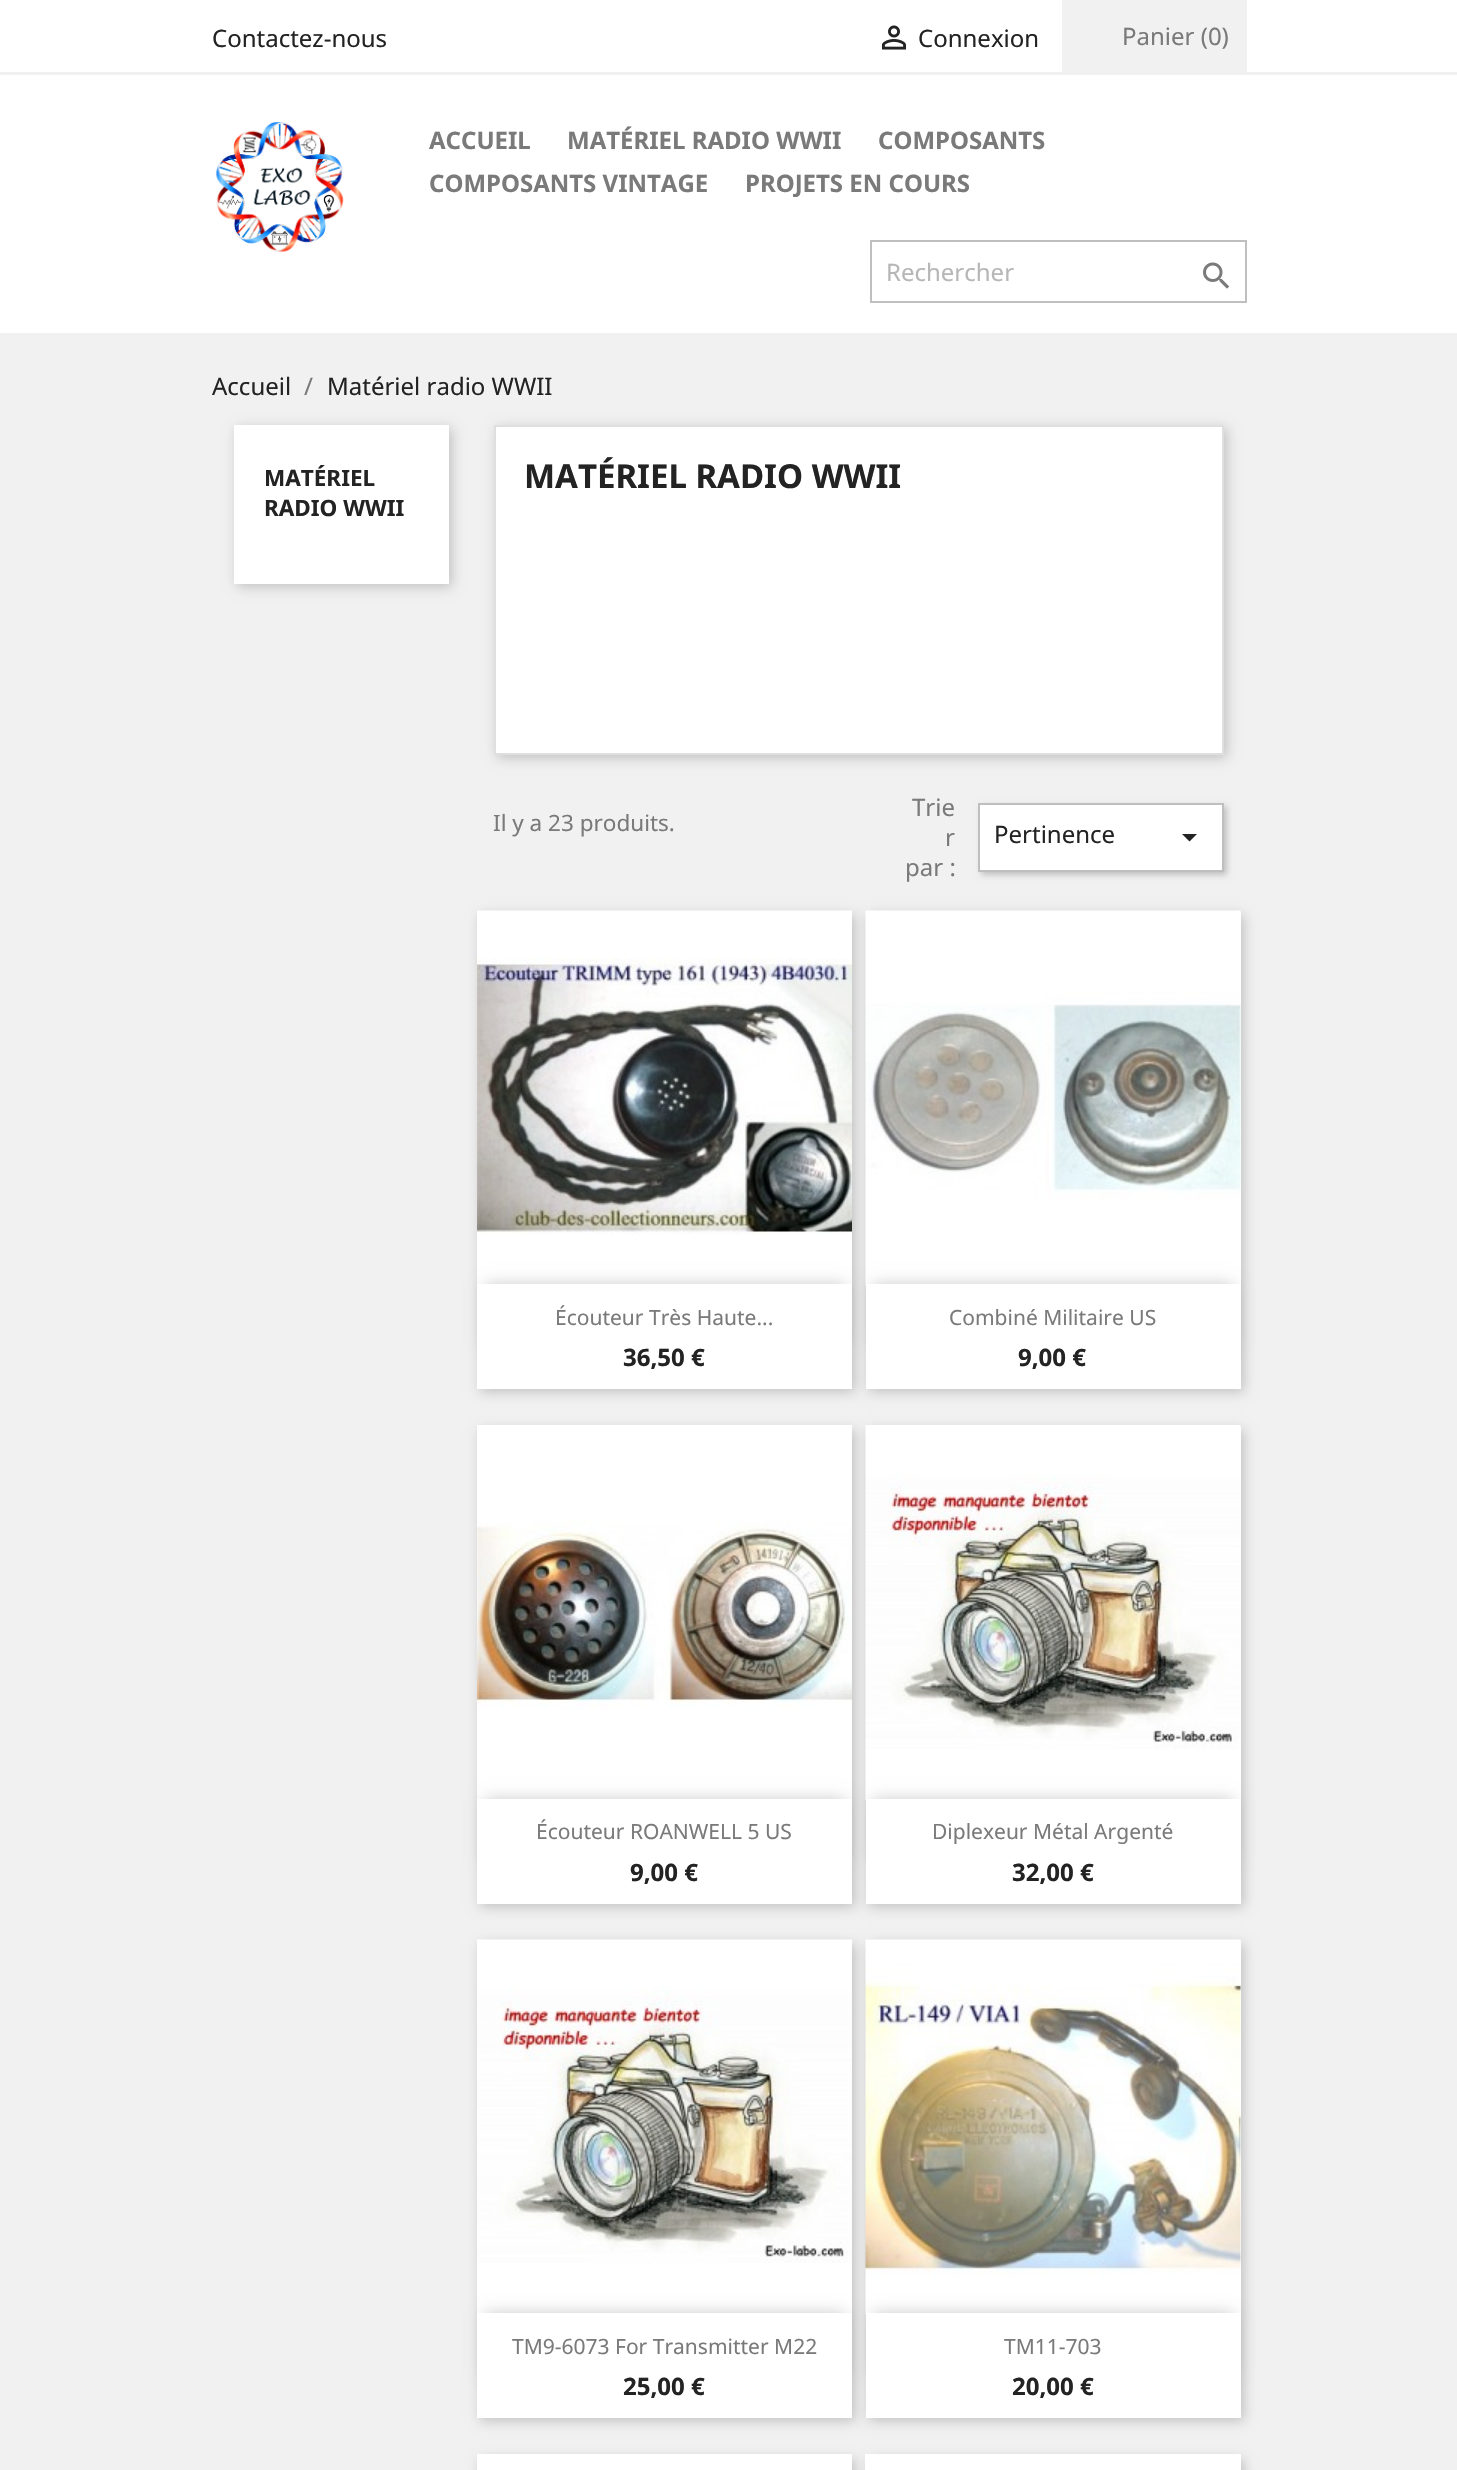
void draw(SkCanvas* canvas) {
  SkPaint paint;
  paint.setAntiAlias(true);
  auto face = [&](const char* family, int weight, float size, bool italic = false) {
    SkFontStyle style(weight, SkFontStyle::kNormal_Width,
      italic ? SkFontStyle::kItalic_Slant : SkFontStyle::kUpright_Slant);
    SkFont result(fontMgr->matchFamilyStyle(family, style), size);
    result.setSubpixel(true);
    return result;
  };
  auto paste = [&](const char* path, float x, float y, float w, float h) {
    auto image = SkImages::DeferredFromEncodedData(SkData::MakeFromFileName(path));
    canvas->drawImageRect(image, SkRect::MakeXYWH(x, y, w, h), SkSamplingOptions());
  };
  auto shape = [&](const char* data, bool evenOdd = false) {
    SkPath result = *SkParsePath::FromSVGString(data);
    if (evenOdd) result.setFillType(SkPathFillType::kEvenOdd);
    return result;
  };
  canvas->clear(0xffffffff);
  paint.setColor(0xfff1f1f1);
  canvas->drawRect(SkRect::MakeXYWH(0, 72, 1457, 3), paint);
  paste("img/1.png", 881, 25, 26, 25);
  canvas->drawRect(SkRect::MakeXYWH(1062, 0, 185, 72), paint);
  paste("img/2.png", 215, 122, 129, 130);
  paint.setStroke(true);
  paint.setStrokeWidth(2);
  paint.setColor(0xffbfbfbf);
  canvas->drawRect(SkRect::MakeXYWH(871, 241, 375, 61), paint);
  paste("img/3.png", 1203, 262, 27, 27);
  paint.setStroke(false);
  paint.setColor(0xfff1f1f1);
  canvas->drawRect(SkRect::MakeXYWH(0, 333, 1457, 2137), paint);
  paint.setColor(0x33000000);
  paint.setMaskFilter(SkMaskFilter::MakeBlur(kNormal_SkBlurStyle, 6));
  canvas->drawRect(SkRect::MakeXYWH(237, 428, 215, 159), paint);
  paint.setMaskFilter(nullptr);
  paint.setColor(0xffffffff);
  canvas->drawRect(SkRect::MakeXYWH(234, 425, 215, 159), paint);
  paint.setColor(0x33000000);
  paint.setMaskFilter(SkMaskFilter::MakeBlur(kNormal_SkBlurStyle, 6));
  canvas->drawRect(SkRect::MakeXYWH(497, 428, 730, 330), paint);
  paint.setMaskFilter(nullptr);
  paint.setColor(0xffffffff);
  canvas->drawRect(SkRect::MakeXYWH(495, 426, 728, 328), paint);
  paint.setStroke(true);
  paint.setColor(0xffdfdfdf);
  canvas->drawRect(SkRect::MakeXYWH(495, 426, 728, 328), paint);
  paint.setStroke(false);
  paint.setColor(0x33000000);
  paint.setMaskFilter(SkMaskFilter::MakeBlur(kNormal_SkBlurStyle, 3));
  canvas->drawRect(SkRect::MakeXYWH(981, 806, 246, 69), paint);
  paint.setMaskFilter(nullptr);
  paint.setColor(0xffffffff);
  canvas->drawRect(SkRect::MakeXYWH(979, 804, 244, 67), paint);
  paint.setStroke(true);
  paint.setColor(0xffbfbfbf);
  canvas->drawRect(SkRect::MakeXYWH(979, 804, 244, 67), paint);
  paint.setStroke(false);
  paint.setColor(0xff232323);
  canvas->drawPath(shape("M1182 834H1197L1189.5 841.5Z"), paint);
  paint.setColor(0x33000000);
  paint.setMaskFilter(SkMaskFilter::MakeBlur(kNormal_SkBlurStyle, 6));
  canvas->drawRect(SkRect::MakeXYWH(480, 915, 375, 477), paint);
  paint.setMaskFilter(nullptr);
  paint.setColor(0xffffffff);
  canvas->drawRect(SkRect::MakeXYWH(477, 1235, 375, 49), paint);
  paste("img/4.png", 477, 910, 375, 325);
  paint.setColor(0x33000000);
  paint.setMaskFilter(SkMaskFilter::MakeBlur(kNormal_SkBlurStyle, 6));
  canvas->drawRect(SkRect::MakeXYWH(869, 915, 375, 477), paint);
  paint.setMaskFilter(nullptr);
  paint.setColor(0xffffffff);
  canvas->drawRect(SkRect::MakeXYWH(1240, 912, 1, 372), paint);
  paste("img/5.png", 865, 910, 376, 376);
  paint.setColor(0x33000000);
  paint.setMaskFilter(SkMaskFilter::MakeBlur(kNormal_SkBlurStyle, 7.5f));
  canvas->drawRect(SkRect::MakeXYWH(485, 1284, 360, 60), paint);
  paint.setMaskFilter(nullptr);
  paint.setMaskFilter(SkMaskFilter::MakeBlur(kNormal_SkBlurStyle, 7.5f));
  canvas->drawRect(SkRect::MakeXYWH(873, 1284, 360, 60), paint);
  paint.setMaskFilter(nullptr);
  paint.setColor(0xffffffff);
  canvas->drawRect(SkRect::MakeXYWH(477, 1284, 375, 105), paint);
  canvas->drawRect(SkRect::MakeXYWH(866, 1284, 375, 105), paint);
  paint.setColor(0x33000000);
  paint.setMaskFilter(SkMaskFilter::MakeBlur(kNormal_SkBlurStyle, 6));
  canvas->drawRect(SkRect::MakeXYWH(480, 1430, 375, 477), paint);
  paint.setMaskFilter(nullptr);
  paint.setColor(0xffffffff);
  canvas->drawRect(SkRect::MakeXYWH(477, 1709, 375, 90), paint);
  paste("img/6.png", 477, 1425, 375, 284);
  paint.setColor(0x33000000);
  paint.setMaskFilter(SkMaskFilter::MakeBlur(kNormal_SkBlurStyle, 6));
  canvas->drawRect(SkRect::MakeXYWH(869, 1430, 375, 477), paint);
  paint.setMaskFilter(nullptr);
  paint.setColor(0xffffffff);
  canvas->drawRect(SkRect::MakeXYWH(1240, 1427, 1, 372), paint);
  paste("img/7.png", 865, 1425, 376, 375);
  paint.setColor(0x33000000);
  paint.setMaskFilter(SkMaskFilter::MakeBlur(kNormal_SkBlurStyle, 7.5f));
  canvas->drawRect(SkRect::MakeXYWH(485, 1799, 360, 60), paint);
  paint.setMaskFilter(nullptr);
  paint.setMaskFilter(SkMaskFilter::MakeBlur(kNormal_SkBlurStyle, 7.5f));
  canvas->drawRect(SkRect::MakeXYWH(873, 1799, 360, 60), paint);
  paint.setMaskFilter(nullptr);
  paint.setColor(0xffffffff);
  canvas->drawRect(SkRect::MakeXYWH(477, 1799, 375, 105), paint);
  canvas->drawRect(SkRect::MakeXYWH(866, 1799, 375, 105), paint);
  paint.setColor(0x33000000);
  paint.setMaskFilter(SkMaskFilter::MakeBlur(kNormal_SkBlurStyle, 6));
  canvas->drawRect(SkRect::MakeXYWH(480, 1944, 375, 477), paint);
  paint.setMaskFilter(nullptr);
  paint.setColor(0xffffffff);
  canvas->drawRect(SkRect::MakeXYWH(477, 2263, 375, 50), paint);
  paste("img/8.png", 477, 1939, 375, 324);
  paint.setColor(0x33000000);
  paint.setMaskFilter(SkMaskFilter::MakeBlur(kNormal_SkBlurStyle, 6));
  canvas->drawRect(SkRect::MakeXYWH(869, 1944, 375, 477), paint);
  paint.setMaskFilter(nullptr);
  paint.setColor(0xffffffff);
  canvas->drawRect(SkRect::MakeXYWH(1240, 1941, 1, 372), paint);
  paste("img/9.png", 865, 1939, 376, 376);
  paint.setColor(0x33000000);
  paint.setMaskFilter(SkMaskFilter::MakeBlur(kNormal_SkBlurStyle, 7.5f));
  canvas->drawRect(SkRect::MakeXYWH(485, 2313, 360, 60), paint);
  paint.setMaskFilter(nullptr);
  paint.setMaskFilter(SkMaskFilter::MakeBlur(kNormal_SkBlurStyle, 7.5f));
  canvas->drawRect(SkRect::MakeXYWH(873, 2313, 360, 60), paint);
  paint.setMaskFilter(nullptr);
  paint.setColor(0xffffffff);
  canvas->drawRect(SkRect::MakeXYWH(477, 2313, 375, 105), paint);
  canvas->drawRect(SkRect::MakeXYWH(866, 2313, 375, 105), paint);
  paint.setColor(0x33000000);
  paint.setMaskFilter(SkMaskFilter::MakeBlur(kNormal_SkBlurStyle, 6));
  canvas->drawRect(SkRect::MakeXYWH(480, 2459, 375, 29), paint);
  paint.setMaskFilter(nullptr);
  paint.setColor(0xffffffff);
  canvas->drawRect(SkRect::MakeXYWH(477, 2454, 375, 16), paint);
  paint.setColor(0x33000000);
  paint.setMaskFilter(SkMaskFilter::MakeBlur(kNormal_SkBlurStyle, 6));
  canvas->drawRect(SkRect::MakeXYWH(869, 2459, 375, 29), paint);
  paint.setMaskFilter(nullptr);
  paint.setColor(0xffffffff);
  canvas->drawRect(SkRect::MakeXYWH(865, 2454, 376, 16), paint);
  auto f0 = face("Noto Sans", 400, 24);
  paint.setColor(0xff232323);
  canvas->drawString("Contactez-nous", 212, 47, f0, paint);
  canvas->drawString("Connexion", 918, 47, f0, paint);
  paint.setColor(0xff7a7a7a);
  canvas->drawString("Panier (0)", 1122, 45, f0, paint);
  auto f1 = face("Noto Sans", 700, 24);
  {
    const struct { const char* s; float x, y; } items[] = {
      {"ACCUEIL", 429, 149},
      {"MATÉRIEL RADIO WWII", 567, 149},
      {"COMPOSANTS", 878, 149},
      {"COMPOSANTS VINTAGE", 429, 192},
      {"PROJETS EN COURS", 745, 192},
    };
    for (auto [s, x, y] : items) {
      canvas->drawString(s, x, y, f1, paint);
    }
  }
  paint.setColor(0xffb7b7b7);
  canvas->drawString("Rechercher", 886, 281, f0, paint);
  paint.setColor(0xff232323);
  canvas->drawString("Accueil", 212, 395, f0, paint);
  paint.setColor(0xff7a7a7a);
  canvas->drawString("/", 304, 395, f0, paint);
  paint.setColor(0xff232323);
  canvas->drawString("Matériel radio WWII", 327, 395, f0, paint);
  auto f2 = face("Noto Sans", 700, 22.5f);
  canvas->drawString("MATÉRIEL", 264, 486, f2, paint);
  canvas->drawString("RADIO WWII", 264, 516, f2, paint);
  auto f3 = face("Noto Sans", 700, 33);
  canvas->drawString("MATÉRIEL RADIO WWII", 524, 488, f3, paint);
  auto f4 = face("Noto Sans", 400, 22.5f);
  paint.setColor(0xff7a7a7a);
  canvas->drawString("Il y a 23 produits.", 493, 831, f4, paint);
  {
    const struct { const char* s; float x, y; } items[] = {
      {"Trie", 912, 816},
      {"r", 945, 846},
      {"par :", 905, 876},
    };
    for (auto [s, x, y] : items) {
      canvas->drawString(s, x, y, f0, paint);
    }
  }
  paint.setColor(0xff232323);
  canvas->drawString("Pertinence", 994, 843, f0, paint);
  auto f5 = face("Noto Sans", 400, 21);
  paint.setColor(0xff7a7a7a);
  canvas->drawString("Écouteur Très Haute...", 555, 1325, f5, paint);
  paint.setColor(0xff232323);
  canvas->drawString("36,50 €", 623, 1366, f1, paint);
  paint.setColor(0xff7a7a7a);
  canvas->drawString("Combiné Militaire US", 949, 1325, f5, paint);
  paint.setColor(0xff232323);
  canvas->drawString("9,00 €", 1018, 1366, f1, paint);
  paint.setColor(0xff7a7a7a);
  canvas->drawString("Écouteur ROANWELL 5 US", 536, 1839, f5, paint);
  paint.setColor(0xff232323);
  canvas->drawString("9,00 €", 630, 1881, f1, paint);
  paint.setColor(0xff7a7a7a);
  canvas->drawString("Diplexeur Métal Argenté", 932, 1839, f5, paint);
  paint.setColor(0xff232323);
  canvas->drawString("32,00 €", 1012, 1881, f1, paint);
  paint.setColor(0xff7a7a7a);
  canvas->drawString("TM9-6073 For Transmitter M22", 512, 2354, f5, paint);
  paint.setColor(0xff232323);
  canvas->drawString("25,00 €", 623, 2395, f1, paint);
  paint.setColor(0xff7a7a7a);
  canvas->drawString("TM11-703", 1004, 2354, f5, paint);
  paint.setColor(0xff232323);
  canvas->drawString("20,00 €", 1012, 2395, f1, paint);
}
